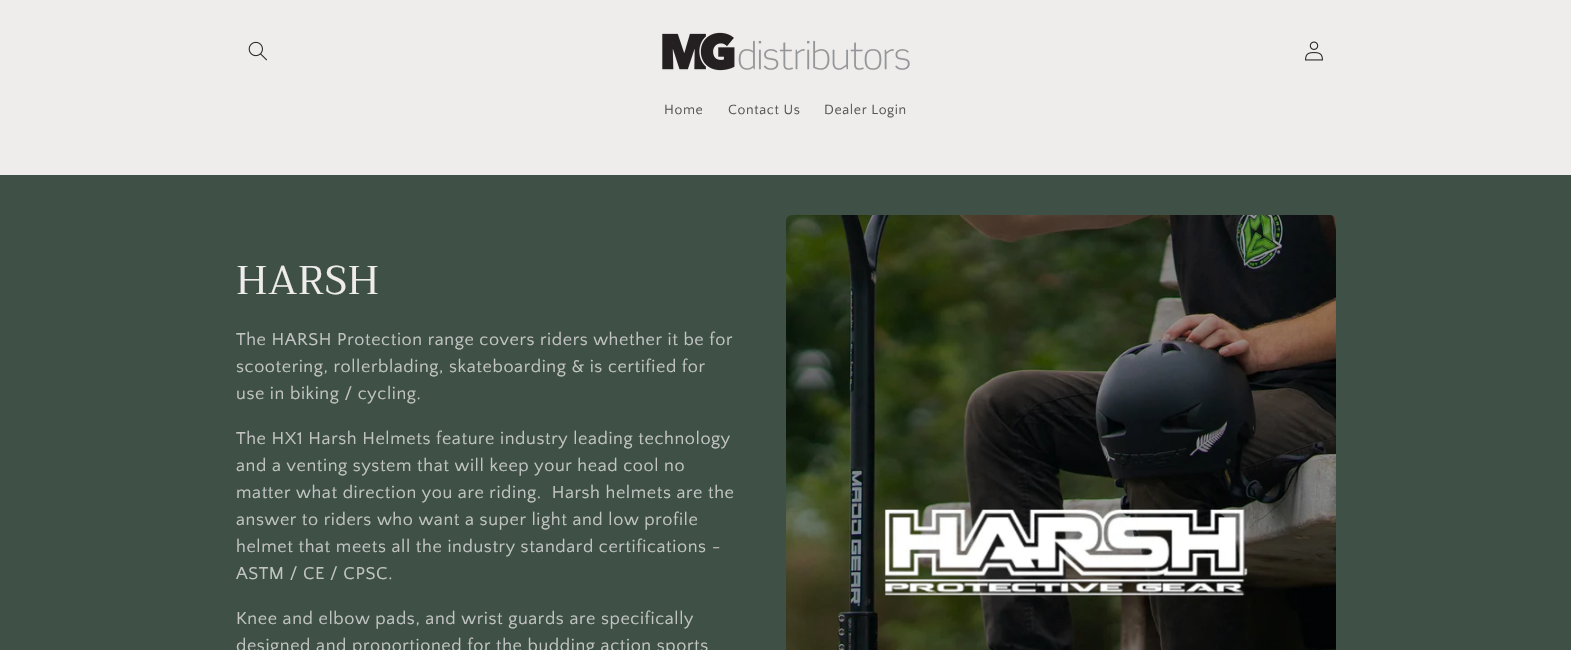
void draw(SkCanvas* canvas) {
  SkPaint paint;
  paint.setAntiAlias(true);
  auto face = [&](const char* family, int weight, float size, bool italic = false) {
    SkFontStyle style(weight, SkFontStyle::kNormal_Width,
      italic ? SkFontStyle::kItalic_Slant : SkFontStyle::kUpright_Slant);
    SkFont result(fontMgr->matchFamilyStyle(family, style), size);
    result.setSubpixel(true);
    return result;
  };
  auto writeSpaced = [&](const char* s, float x, float y, const SkFont& font, const SkPaint& ink, float letter, float word) {
    std::vector<SkGlyphID> glyphs(font.countText(s, strlen(s), SkTextEncoding::kUTF8));
    std::vector<float> xs(glyphs.size());
    font.textToGlyphs(s, strlen(s), SkTextEncoding::kUTF8, glyphs);
    font.getXPos(glyphs, xs, x);
    float extra = 0;
    for (size_t i = 0; i < glyphs.size(); i++) {
      xs[i] += extra;
      extra += letter + word * (glyphs[i] == font.unicharToGlyph(' '));
    }
    canvas->drawTextBlob(SkTextBlob::MakeFromPosHGlyphs(glyphs, xs, y, font), 0, 0, ink);
  };
  auto paste = [&](const char* path, float x, float y, float w, float h) {
    auto image = SkImages::DeferredFromEncodedData(SkData::MakeFromFileName(path));
    canvas->drawImageRect(image, SkRect::MakeXYWH(x, y, w, h), SkSamplingOptions());
  };
  canvas->clear(0xffefecec);
  paste("img/1.png", 248, 41, 19, 20);
  paste("img/2.png", 662, 32, 248, 39);
  paste("img/3.png", 1305, 41, 18, 20);
  paint.setColor(0xff3f5147);
  canvas->drawRect(SkRect::MakeXYWH(0, 175, 1571, 475), paint);
  paste("img/4.png", 786, 215, 550, 435);
  auto f0 = face("Quattrocento Sans", 400, 14);
  paint.setColor(0xff585757);
  {
    const struct { const char* s; float x, y; } items[] = {
      {"Home", 664, 114},
      {"Contact Us", 728, 114},
      {"Dealer Login", 824, 114},
    };
    for (auto [s, x, y] : items) {
      writeSpaced(s, x, y, f0, paint, 0.6f, 0);
    }
  }
  auto f1 = face("Trirong", 400, 40);
  paint.setColor(0xffefecec);
  writeSpaced("HARSH", 236, 294, f1, paint, 0.6f, 0);
  auto f2 = face("Quattrocento Sans", 400, 18);
  paint.setColor(0xffc3c5c3);
  {
    const struct { const char* s; float x, y; } items[] = {
      {"The HARSH Protection range covers riders whether it be for", 236, 345},
      {"scootering, rollerblading, skateboarding & is certified for", 236, 372},
      {"use in biking / cycling.", 236, 399},
      {"The HX1 Harsh Helmets feature industry leading technology", 236, 444},
      {"and a venting system that will keep your head cool no", 236, 471},
      {"matter what direction you are riding.  Harsh helmets are the", 236, 498},
      {"answer to riders who want a super light and low profile", 236, 525},
      {"helmet that meets all the industry standard certifications -", 236, 552},
      {"ASTM / CE / CPSC.", 236, 579},
      {"Knee and elbow pads, and wrist guards are specifically", 236, 624},
      {"designed and proportioned for the budding action sports", 236, 651},
    };
    for (auto [s, x, y] : items) {
      writeSpaced(s, x, y, f2, paint, 0.6f, 0);
    }
  }
}
